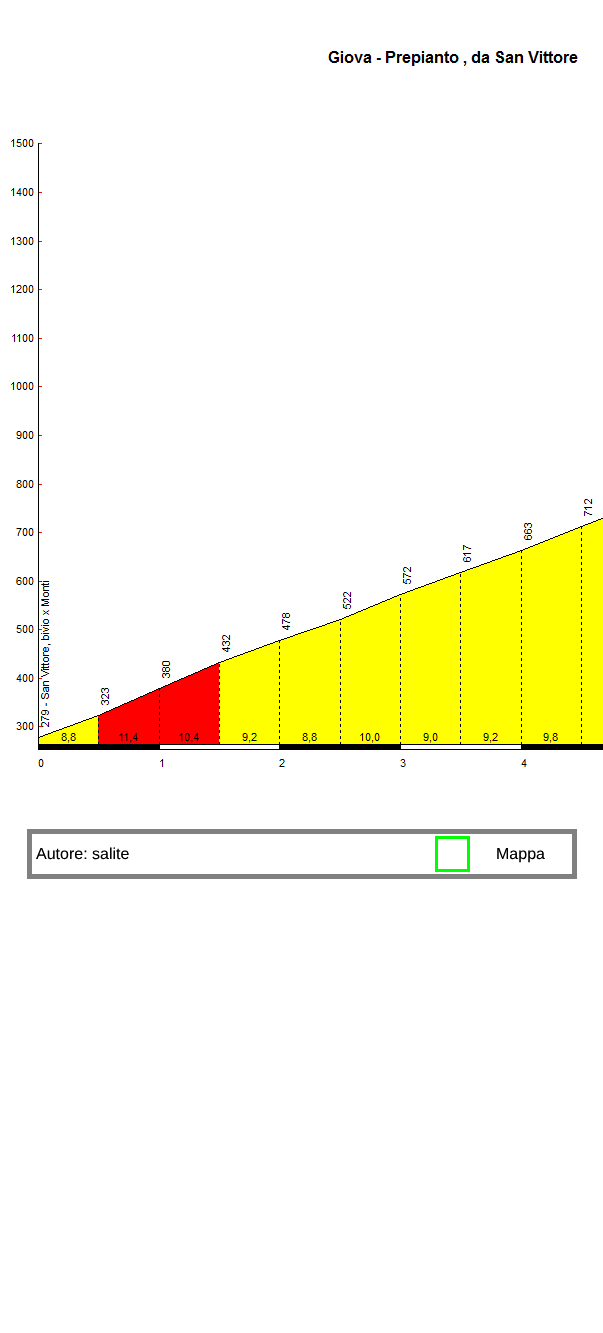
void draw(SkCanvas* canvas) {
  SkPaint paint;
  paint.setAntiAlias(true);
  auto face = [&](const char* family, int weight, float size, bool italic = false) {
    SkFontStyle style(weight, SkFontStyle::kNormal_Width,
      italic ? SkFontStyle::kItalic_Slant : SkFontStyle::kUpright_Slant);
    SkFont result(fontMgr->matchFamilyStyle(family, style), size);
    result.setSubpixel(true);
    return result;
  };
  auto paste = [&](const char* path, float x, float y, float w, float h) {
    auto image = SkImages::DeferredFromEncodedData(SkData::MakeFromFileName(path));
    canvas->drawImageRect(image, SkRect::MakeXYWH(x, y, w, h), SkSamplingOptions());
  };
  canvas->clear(0xffffffff);
  paste("img/1.png", 10, 51, 593, 716);
  paint.setStroke(true);
  paint.setStrokeWidth(5);
  paint.setColor(0xff808080);
  canvas->drawRect(SkRect::MakeXYWH(29.5f, 831.5f, 545, 45), paint);
  paint.setStrokeWidth(3);
  paint.setColor(0xff00ff00);
  canvas->drawRect(SkRect::MakeXYWH(436.5f, 837.5f, 32, 33), paint);
  auto f0 = face("Liberation Sans", 400, 16);
  paint.setStroke(false);
  paint.setColor(0xff000000);
  canvas->drawString("Autore: salite", 36, 859, f0, paint);
  canvas->drawString("Mappa", 496, 859, f0, paint);
}
